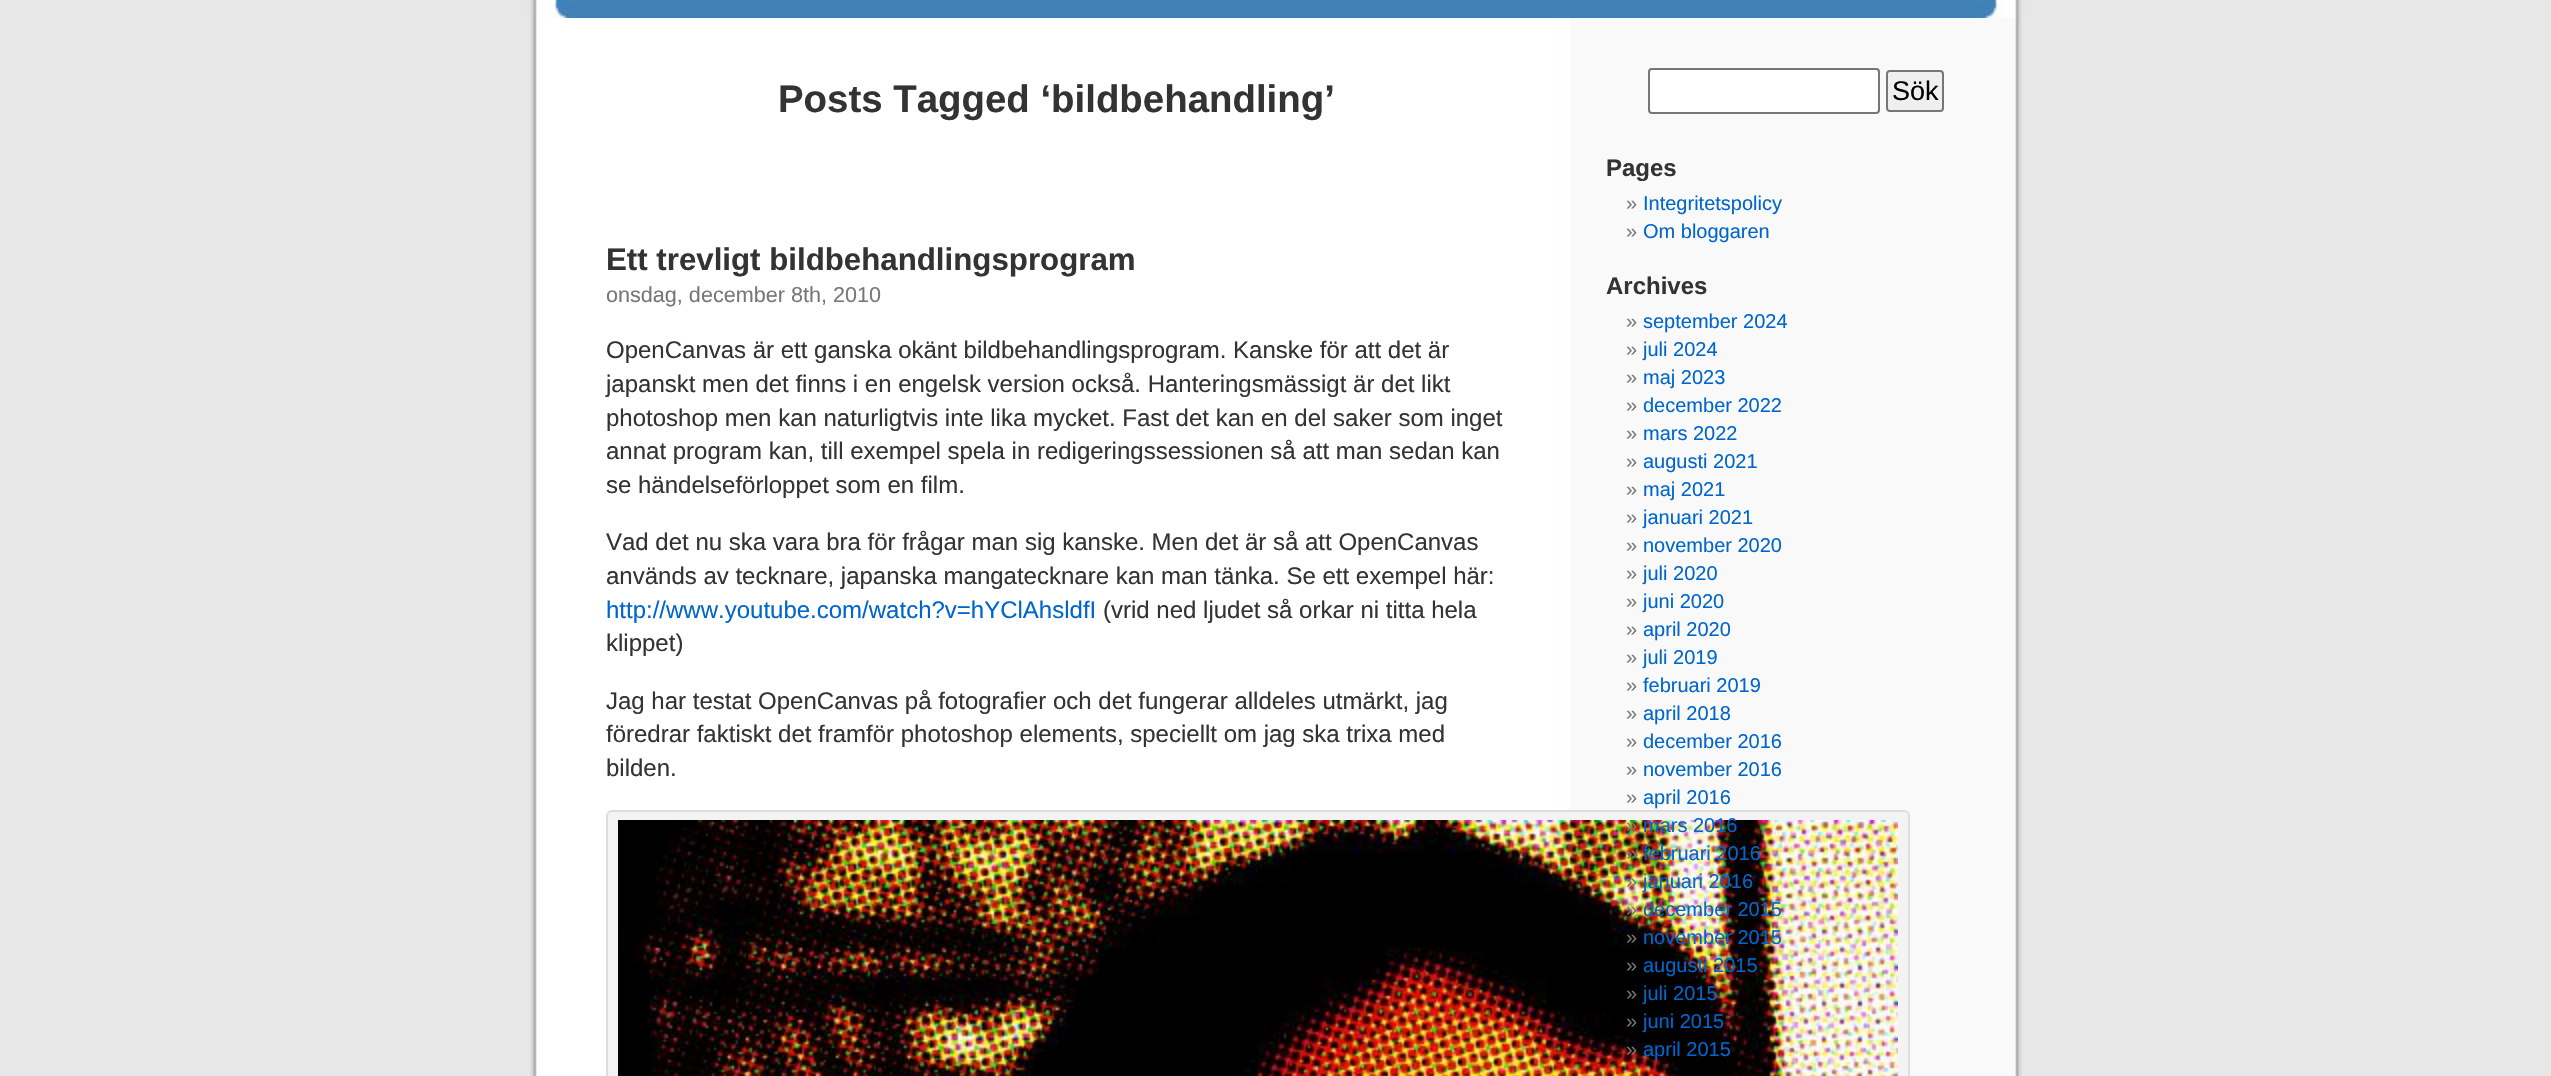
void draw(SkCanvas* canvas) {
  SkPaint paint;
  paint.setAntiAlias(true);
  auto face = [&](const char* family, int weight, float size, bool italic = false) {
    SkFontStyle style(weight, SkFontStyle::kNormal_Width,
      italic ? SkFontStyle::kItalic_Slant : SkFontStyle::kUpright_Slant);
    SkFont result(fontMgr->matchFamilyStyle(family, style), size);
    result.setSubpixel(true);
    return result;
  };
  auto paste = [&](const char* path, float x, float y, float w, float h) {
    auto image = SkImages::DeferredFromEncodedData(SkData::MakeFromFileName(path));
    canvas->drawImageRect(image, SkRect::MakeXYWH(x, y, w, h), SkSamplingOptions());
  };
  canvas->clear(0xffe7e7e7);
  paste("img/1.png", 530, 18, 1492, 1058);
  paste("img/2.png", 518, 0, 1516, 18);
  paint.setColor(0xfff3f3f3);
  canvas->drawRoundRect(SkRect::MakeXYWH(607, 811, 1302, 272), 5, 5, paint);
  paint.setStroke(true);
  paint.setStrokeWidth(2);
  paint.setColor(0xffdddddd);
  canvas->drawRoundRect(SkRect::MakeXYWH(607, 811, 1302, 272), 5, 5, paint);
  paste("img/3.png", 618, 820, 1280, 256);
  paint.setStroke(false);
  paint.setColor(0xffffffff);
  canvas->drawRoundRect(SkRect::MakeXYWH(1649, 69, 230, 44), 3, 3, paint);
  paint.setStroke(true);
  paint.setColor(0xff767676);
  canvas->drawRoundRect(SkRect::MakeXYWH(1649, 69, 230, 44), 3, 3, paint);
  paint.setStroke(false);
  paint.setColor(0xffefefef);
  canvas->drawRoundRect(SkRect::MakeXYWH(1887, 71, 56, 40), 3, 3, paint);
  paint.setStroke(true);
  paint.setColor(0xff767676);
  canvas->drawRoundRect(SkRect::MakeXYWH(1887, 71, 56, 40), 3, 3, paint);
  auto f0 = face("Liberation Sans", 700, 38.4f);
  paint.setStroke(false);
  paint.setColor(0xff333333);
  canvas->drawString("Posts Tagged ‘bildbehandling’", 778, 112, f0, paint);
  auto f1 = face("Liberation Sans", 700, 31.25f);
  canvas->drawString("Ett trevligt bildbehandlingsprogram", 606, 270, f1, paint);
  auto f2 = face("Liberation Sans", 400, 21.6f);
  paint.setColor(0xff777777);
  canvas->drawString("onsdag, december 8th, 2010", 606, 302, f2, paint);
  auto f3 = face("Liberation Sans", 400, 24);
  paint.setColor(0xff333333);
  {
    const struct { const char* s; float x, y; } items[] = {
      {"OpenCanvas är ett ganska okänt bildbehandlingsprogram. Kanske för att det är", 606, 358},
      {"japanskt men det finns i en engelsk version också. Hanteringsmässigt är det likt", 606, 392},
      {"photoshop men kan naturligtvis inte lika mycket. Fast det kan en del saker som inget", 606, 426},
      {"annat program kan, till exempel spela in redigeringssessionen så att man sedan kan", 606, 459},
      {"se händelseförloppet som en film.", 606, 493},
      {"Vad det nu ska vara bra för frågar man sig kanske. Men det är så att OpenCanvas", 606, 550},
      {"används av tecknare, japanska mangatecknare kan man tänka. Se ett exempel här:", 606, 584},
    };
    for (auto [s, x, y] : items) {
      canvas->drawString(s, x, y, f3, paint);
    }
  }
  paint.setColor(0xff0066cc);
  canvas->drawString("http://www.youtube.com/watch?v=hYClAhsldfI", 606, 618, f3, paint);
  paint.setColor(0xff333333);
  {
    const struct { const char* s; float x, y; } items[] = {
      {"(vrid ned ljudet så orkar ni titta hela", 1103, 618},
      {"klippet)", 606, 651},
      {"Jag har testat OpenCanvas på fotografier och det fungerar alldeles utmärkt, jag", 606, 709},
      {"föredrar faktiskt det framför photoshop elements, speciellt om jag ska trixa med", 606, 742},
      {"bilden.", 606, 776},
    };
    for (auto [s, x, y] : items) {
      canvas->drawString(s, x, y, f3, paint);
    }
  }
  auto f4 = face("Liberation Sans", 400, 27);
  paint.setColor(0xff000000);
  canvas->drawString("Sök", 1892, 100, f4, paint);
  auto f5 = face("Liberation Sans", 700, 24);
  paint.setColor(0xff333333);
  canvas->drawString("Pages", 1606, 176, f5, paint);
  auto f6 = face("Liberation Sans", 400, 20);
  paint.setColor(0xff777777);
  canvas->drawString("»", 1626, 210, f6, paint);
  paint.setColor(0xff0066cc);
  canvas->drawString("Integritetspolicy", 1643, 210, f6, paint);
  paint.setColor(0xff777777);
  canvas->drawString("»", 1626, 238, f6, paint);
  paint.setColor(0xff0066cc);
  canvas->drawString("Om bloggaren", 1643, 238, f6, paint);
  paint.setColor(0xff333333);
  canvas->drawString("Archives", 1606, 294, f5, paint);
  paint.setColor(0xff777777);
  canvas->drawString("»", 1626, 328, f6, paint);
  paint.setColor(0xff0066cc);
  canvas->drawString("september 2024", 1643, 328, f6, paint);
  paint.setColor(0xff777777);
  canvas->drawString("»", 1626, 356, f6, paint);
  paint.setColor(0xff0066cc);
  canvas->drawString("juli 2024", 1643, 356, f6, paint);
  paint.setColor(0xff777777);
  canvas->drawString("»", 1626, 384, f6, paint);
  paint.setColor(0xff0066cc);
  canvas->drawString("maj 2023", 1643, 384, f6, paint);
  paint.setColor(0xff777777);
  canvas->drawString("»", 1626, 412, f6, paint);
  paint.setColor(0xff0066cc);
  canvas->drawString("december 2022", 1643, 412, f6, paint);
  paint.setColor(0xff777777);
  canvas->drawString("»", 1626, 440, f6, paint);
  paint.setColor(0xff0066cc);
  canvas->drawString("mars 2022", 1643, 440, f6, paint);
  paint.setColor(0xff777777);
  canvas->drawString("»", 1626, 468, f6, paint);
  paint.setColor(0xff0066cc);
  canvas->drawString("augusti 2021", 1643, 468, f6, paint);
  paint.setColor(0xff777777);
  canvas->drawString("»", 1626, 496, f6, paint);
  paint.setColor(0xff0066cc);
  canvas->drawString("maj 2021", 1643, 496, f6, paint);
  paint.setColor(0xff777777);
  canvas->drawString("»", 1626, 524, f6, paint);
  paint.setColor(0xff0066cc);
  canvas->drawString("januari 2021", 1643, 524, f6, paint);
  paint.setColor(0xff777777);
  canvas->drawString("»", 1626, 552, f6, paint);
  paint.setColor(0xff0066cc);
  canvas->drawString("november 2020", 1643, 552, f6, paint);
  paint.setColor(0xff777777);
  canvas->drawString("»", 1626, 580, f6, paint);
  paint.setColor(0xff0066cc);
  canvas->drawString("juli 2020", 1643, 580, f6, paint);
  paint.setColor(0xff777777);
  canvas->drawString("»", 1626, 608, f6, paint);
  paint.setColor(0xff0066cc);
  canvas->drawString("juni 2020", 1643, 608, f6, paint);
  paint.setColor(0xff777777);
  canvas->drawString("»", 1626, 636, f6, paint);
  paint.setColor(0xff0066cc);
  canvas->drawString("april 2020", 1643, 636, f6, paint);
  paint.setColor(0xff777777);
  canvas->drawString("»", 1626, 664, f6, paint);
  paint.setColor(0xff0066cc);
  canvas->drawString("juli 2019", 1643, 664, f6, paint);
  paint.setColor(0xff777777);
  canvas->drawString("»", 1626, 692, f6, paint);
  paint.setColor(0xff0066cc);
  canvas->drawString("februari 2019", 1643, 692, f6, paint);
  paint.setColor(0xff777777);
  canvas->drawString("»", 1626, 720, f6, paint);
  paint.setColor(0xff0066cc);
  canvas->drawString("april 2018", 1643, 720, f6, paint);
  paint.setColor(0xff777777);
  canvas->drawString("»", 1626, 748, f6, paint);
  paint.setColor(0xff0066cc);
  canvas->drawString("december 2016", 1643, 748, f6, paint);
  paint.setColor(0xff777777);
  canvas->drawString("»", 1626, 776, f6, paint);
  paint.setColor(0xff0066cc);
  canvas->drawString("november 2016", 1643, 776, f6, paint);
  paint.setColor(0xff777777);
  canvas->drawString("»", 1626, 804, f6, paint);
  paint.setColor(0xff0066cc);
  canvas->drawString("april 2016", 1643, 804, f6, paint);
  paint.setColor(0xff777777);
  canvas->drawString("»", 1626, 832, f6, paint);
  paint.setColor(0xff0066cc);
  canvas->drawString("mars 2016", 1643, 832, f6, paint);
  paint.setColor(0xff777777);
  canvas->drawString("»", 1626, 860, f6, paint);
  paint.setColor(0xff0066cc);
  canvas->drawString("februari 2016", 1643, 860, f6, paint);
  paint.setColor(0xff777777);
  canvas->drawString("»", 1626, 888, f6, paint);
  paint.setColor(0xff0066cc);
  canvas->drawString("januari 2016", 1643, 888, f6, paint);
  paint.setColor(0xff777777);
  canvas->drawString("»", 1626, 916, f6, paint);
  paint.setColor(0xff0066cc);
  canvas->drawString("december 2015", 1643, 916, f6, paint);
  paint.setColor(0xff777777);
  canvas->drawString("»", 1626, 944, f6, paint);
  paint.setColor(0xff0066cc);
  canvas->drawString("november 2015", 1643, 944, f6, paint);
  paint.setColor(0xff777777);
  canvas->drawString("»", 1626, 972, f6, paint);
  paint.setColor(0xff0066cc);
  canvas->drawString("augusti 2015", 1643, 972, f6, paint);
  paint.setColor(0xff777777);
  canvas->drawString("»", 1626, 1000, f6, paint);
  paint.setColor(0xff0066cc);
  canvas->drawString("juli 2015", 1643, 1000, f6, paint);
  paint.setColor(0xff777777);
  canvas->drawString("»", 1626, 1028, f6, paint);
  paint.setColor(0xff0066cc);
  canvas->drawString("juni 2015", 1643, 1028, f6, paint);
  paint.setColor(0xff777777);
  canvas->drawString("»", 1626, 1056, f6, paint);
  paint.setColor(0xff0066cc);
  canvas->drawString("april 2015", 1643, 1056, f6, paint);
}
